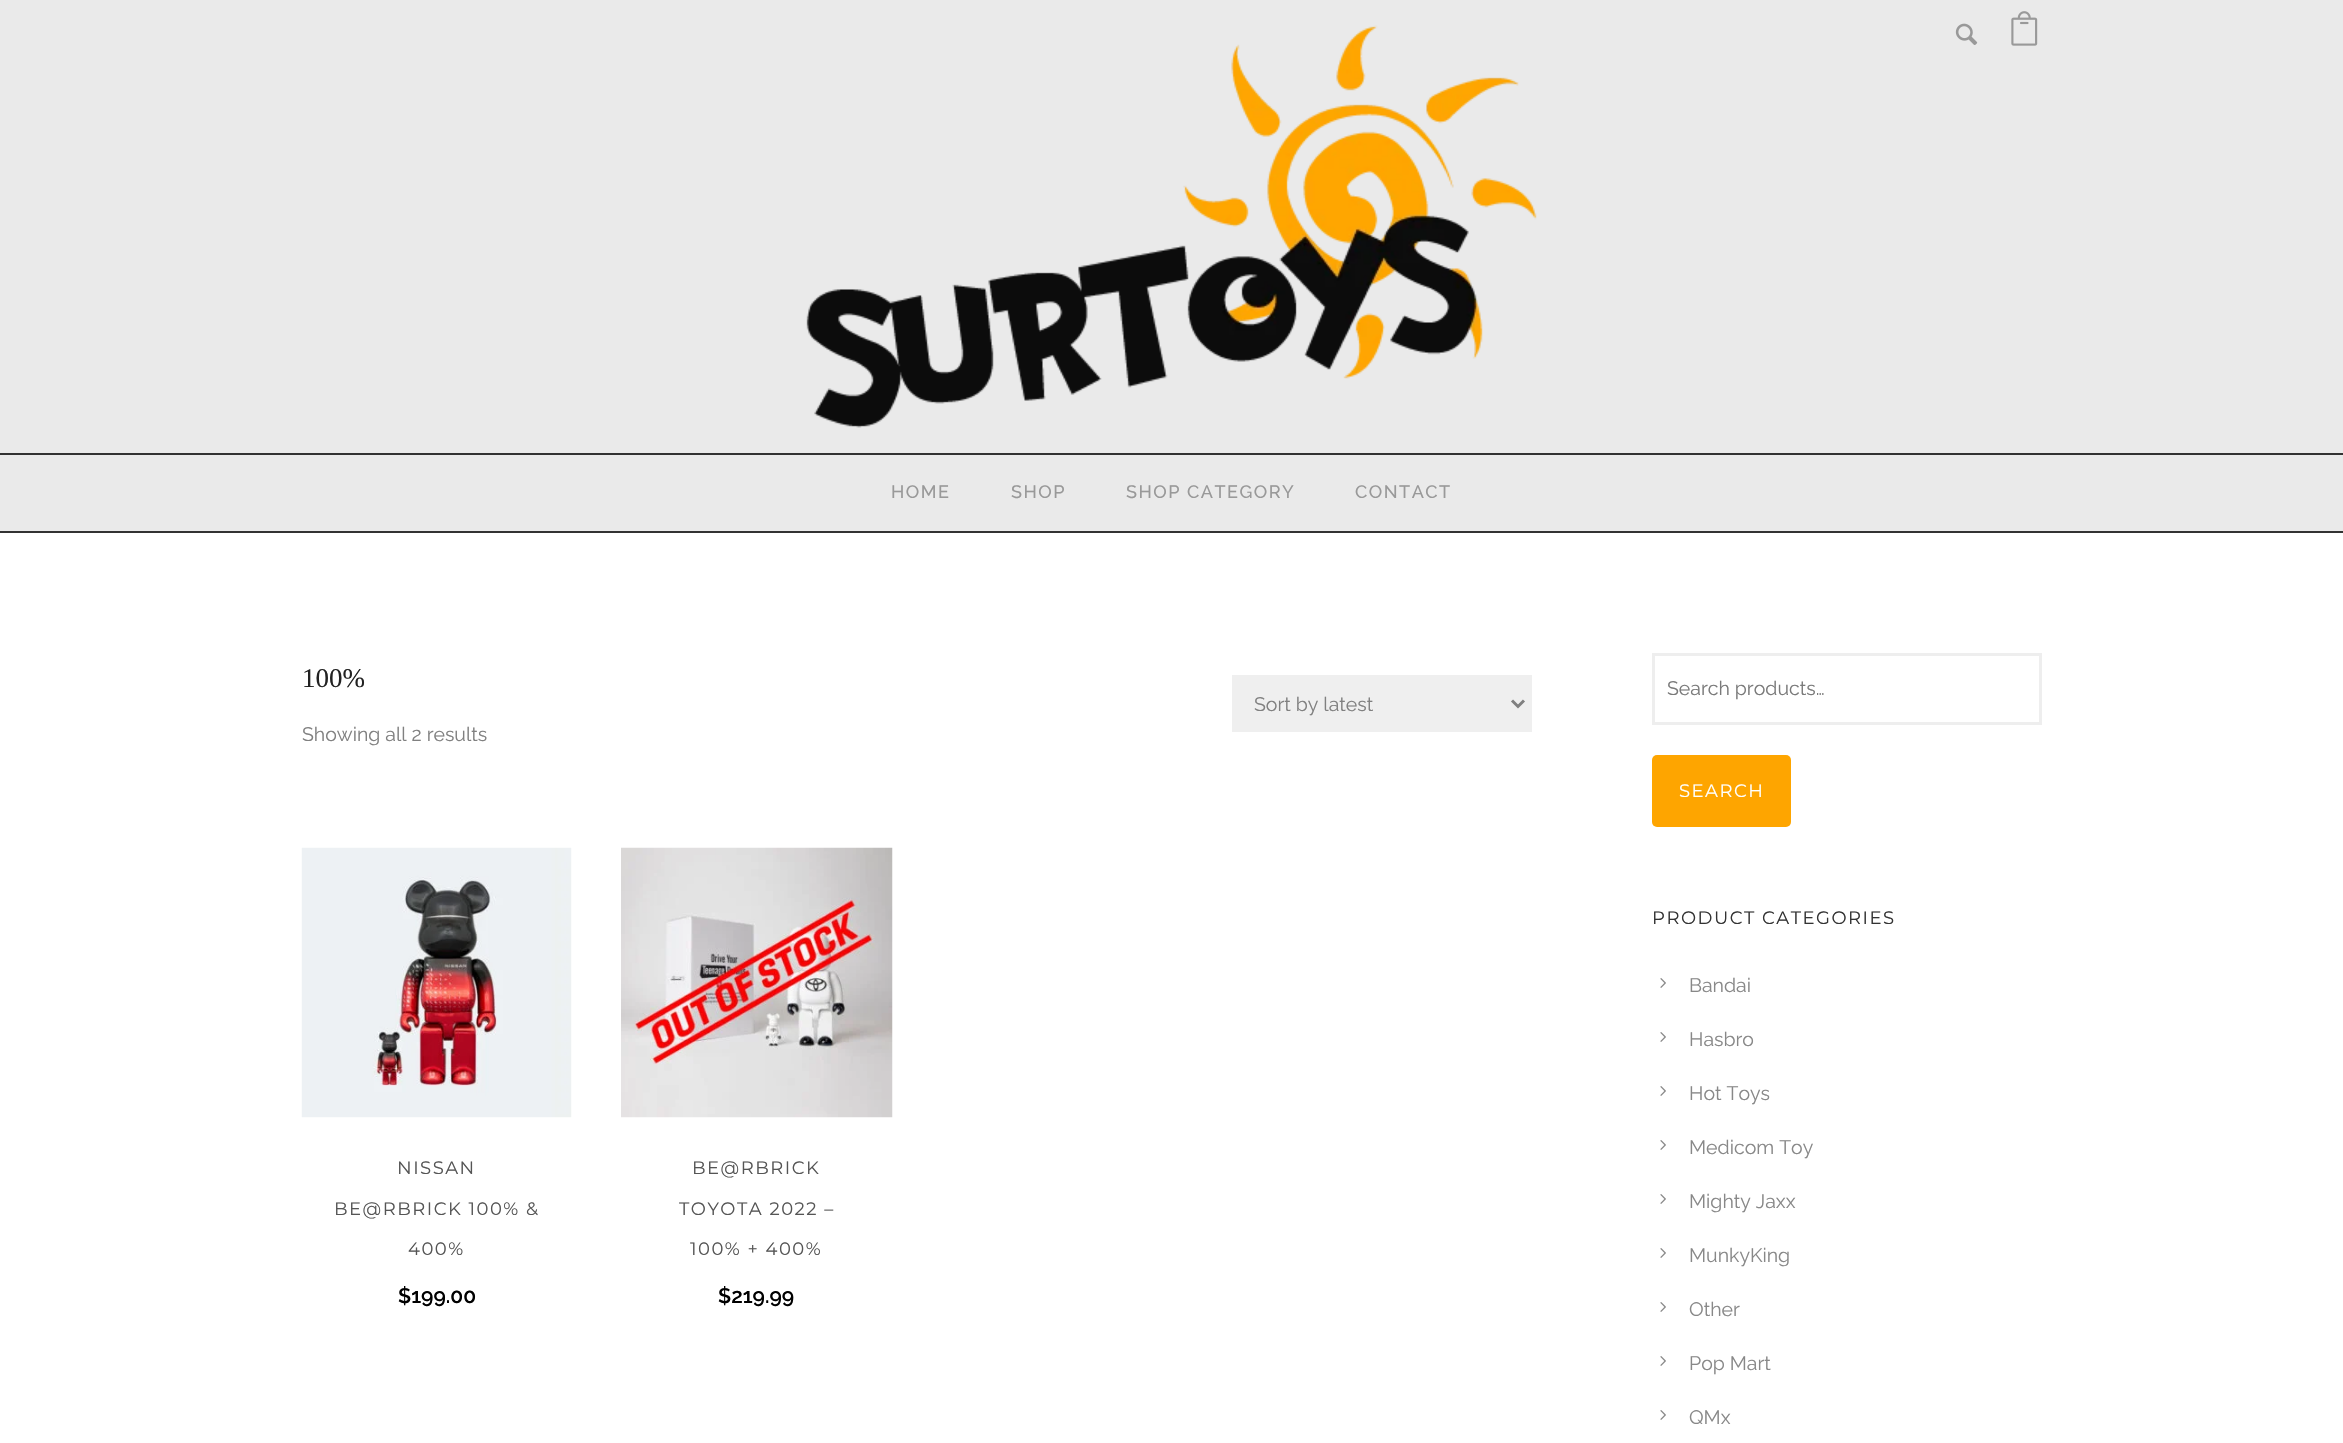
void draw(SkCanvas* canvas) {
  SkPaint paint;
  paint.setAntiAlias(true);
  auto face = [&](const char* family, int weight, float size, bool italic = false) {
    SkFontStyle style(weight, SkFontStyle::kNormal_Width,
      italic ? SkFontStyle::kItalic_Slant : SkFontStyle::kUpright_Slant);
    SkFont result(fontMgr->matchFamilyStyle(family, style), size);
    result.setSubpixel(true);
    return result;
  };
  auto writeSpaced = [&](const char* s, float x, float y, const SkFont& font, const SkPaint& ink, float letter, float word) {
    std::vector<SkGlyphID> glyphs(font.countText(s, strlen(s), SkTextEncoding::kUTF8));
    std::vector<float> xs(glyphs.size());
    font.textToGlyphs(s, strlen(s), SkTextEncoding::kUTF8, glyphs);
    font.getXPos(glyphs, xs, x);
    float extra = 0;
    for (size_t i = 0; i < glyphs.size(); i++) {
      xs[i] += extra;
      extra += letter + word * (glyphs[i] == font.unicharToGlyph(' '));
    }
    canvas->drawTextBlob(SkTextBlob::MakeFromPosHGlyphs(glyphs, xs, y, font), 0, 0, ink);
  };
  auto paste = [&](const char* path, float x, float y, float w, float h) {
    auto image = SkImages::DeferredFromEncodedData(SkData::MakeFromFileName(path));
    canvas->drawImageRect(image, SkRect::MakeXYWH(x, y, w, h), SkSamplingOptions());
  };
  auto shape = [&](const char* data, bool evenOdd = false) {
    SkPath result = *SkParsePath::FromSVGString(data);
    if (evenOdd) result.setFillType(SkPathFillType::kEvenOdd);
    return result;
  };
  canvas->clear(0xffffffff);
  paint.setColor(0xffeaeaea);
  canvas->drawRect(SkRect::MakeXYWH(0, 0, 2343, 531), paint);
  paste("img/1.png", 806, 25, 731, 403);
  paste("img/2.png", 1955, 23, 23, 22);
  paste("img/3.png", 2011, 11, 27, 35);
  {
    const struct { float x, y, w, h; SkColor color; } items[] = {
      {0, 453, 2343, 2, 0xff323232},
      {0, 531, 2343, 2, 0xff323232},
      {1232, 675, 300, 57, 0xffefefef},
    };
    for (auto [x, y, w, h, color] : items) {
      paint.setColor(color);
      canvas->drawRect(SkRect::MakeXYWH(x, y, w, h), paint);
    }
  }
  paint.setStroke(true);
  paint.setStrokeWidth(3);
  paint.setColor(0xff808080);
  canvas->drawPath(shape("M1512 700.5L1518 706.5L1524 700.5"), paint);
  paste("img/4.png", 301, 847, 271, 271);
  paste("img/5.png", 621, 847, 272, 271);
  paint.setColor(0xffeeeeee);
  canvas->drawRect(SkRect::MakeXYWH(1653.5f, 654.5f, 387, 69), paint);
  paint.setStroke(false);
  paint.setColor(0xfffea500);
  canvas->drawRoundRect(SkRect::MakeXYWH(1652, 755, 139, 72), 5, 5, paint);
  paste("img/6.png", 1660, 978, 6, 10);
  paste("img/6.png", 1660, 1032, 6, 10);
  paste("img/6.png", 1660, 1086, 6, 10);
  paste("img/6.png", 1660, 1140, 6, 10);
  paste("img/6.png", 1660, 1194, 6, 10);
  paste("img/6.png", 1660, 1248, 6, 10);
  paste("img/6.png", 1660, 1302, 6, 10);
  paste("img/6.png", 1660, 1356, 6, 10);
  paste("img/6.png", 1660, 1410, 6, 10);
  auto f0 = face("Raleway", 500, 18);
  paint.setColor(0xff999999);
  {
    const struct { const char* s; float x, y; } items[] = {
      {"HOME", 891, 498},
      {"SHOP", 1011, 498},
      {"SHOP CATEGORY", 1126, 498},
      {"CONTACT", 1355, 498},
    };
    for (auto [s, x, y] : items) {
      writeSpaced(s, x, y, f0, paint, 1.5f, 0);
    }
  }
  auto f1 = face("Liberation Serif", 400, 27);
  paint.setColor(0xff222222);
  canvas->drawString("100%", 302, 687, f1, paint);
  auto f2 = face("Raleway", 400, 19.5f);
  paint.setColor(0xff808080);
  canvas->drawString("Sort by latest", 1254, 711, f2, paint);
  canvas->drawString("Showing all 2 results", 302, 741, f2, paint);
  auto f3 = face("Montserrat", 400, 18);
  paint.setColor(0xff555555);
  {
    const struct { const char* s; float x, y; } items[] = {
      {"NISSAN", 397, 1174},
      {"BE@RBRICK 100% &", 334, 1215},
      {"400%", 408, 1255},
    };
    for (auto [s, x, y] : items) {
      writeSpaced(s, x, y, f3, paint, 1.5f, 0);
    }
  }
  auto f4 = face("Raleway", 600, 21);
  paint.setColor(0xff000000);
  canvas->drawString("$199.00", 398, 1303, f4, paint);
  paint.setColor(0xff555555);
  {
    const struct { const char* s; float x, y; } items[] = {
      {"BE@RBRICK", 692, 1174},
      {"TOYOTA 2022 –", 679, 1215},
      {"100% + 400%", 690, 1255},
    };
    for (auto [s, x, y] : items) {
      writeSpaced(s, x, y, f3, paint, 1.5f, 0);
    }
  }
  paint.setColor(0xff000000);
  canvas->drawString("$219.99", 718, 1303, f4, paint);
  paint.setColor(0xff7a7a7a);
  canvas->drawString("Search products…", 1667, 695, f2, paint);
  paint.setColor(0xffffffff);
  writeSpaced("SEARCH", 1679, 797, f3, paint, 1.5f, 0);
  paint.setColor(0xff333333);
  writeSpaced("PRODUCT CATEGORIES", 1652, 924, f3, paint, 1.5f, 0);
  paint.setColor(0xff888888);
  {
    const struct { const char* s; float x, y; } items[] = {
      {"Bandai", 1689, 992},
      {"Hasbro", 1689, 1046},
      {"Hot Toys", 1689, 1100},
      {"Medicom Toy", 1689, 1154},
      {"Mighty Jaxx", 1689, 1208},
      {"MunkyKing", 1689, 1262},
      {"Other", 1689, 1316},
      {"Pop Mart", 1689, 1370},
      {"QMx", 1689, 1424},
    };
    for (auto [s, x, y] : items) {
      canvas->drawString(s, x, y, f2, paint);
    }
  }
}
